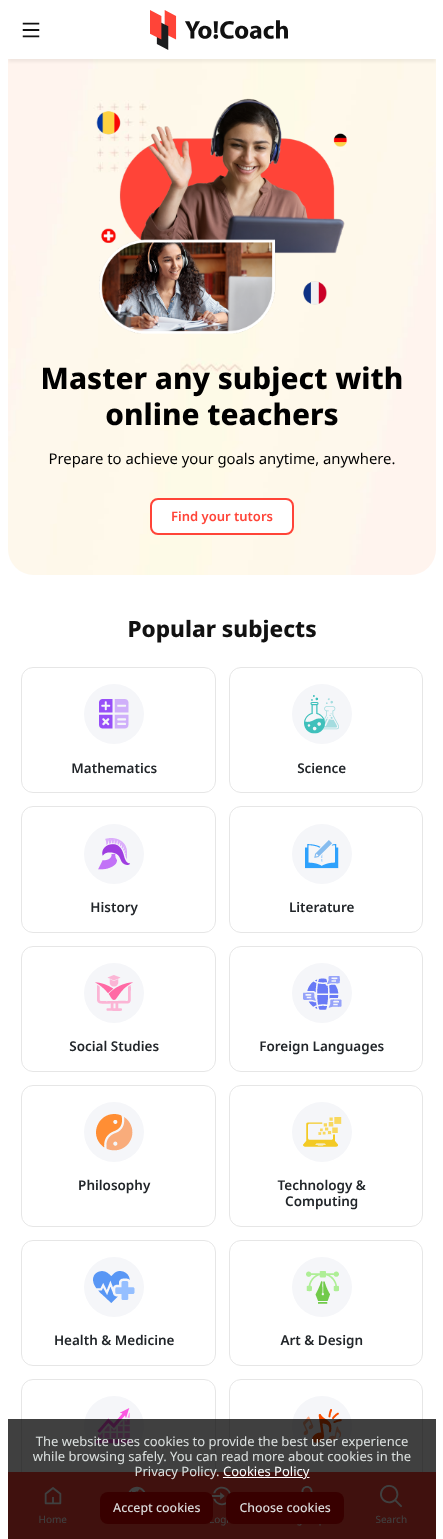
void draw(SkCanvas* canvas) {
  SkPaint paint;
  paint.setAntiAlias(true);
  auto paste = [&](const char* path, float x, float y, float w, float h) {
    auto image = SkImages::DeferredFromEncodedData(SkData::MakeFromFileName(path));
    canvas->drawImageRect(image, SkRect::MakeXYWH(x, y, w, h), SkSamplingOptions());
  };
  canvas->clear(0xffffffff);
  paste("img/1.png", 8, 10, 428, 1529);
}
